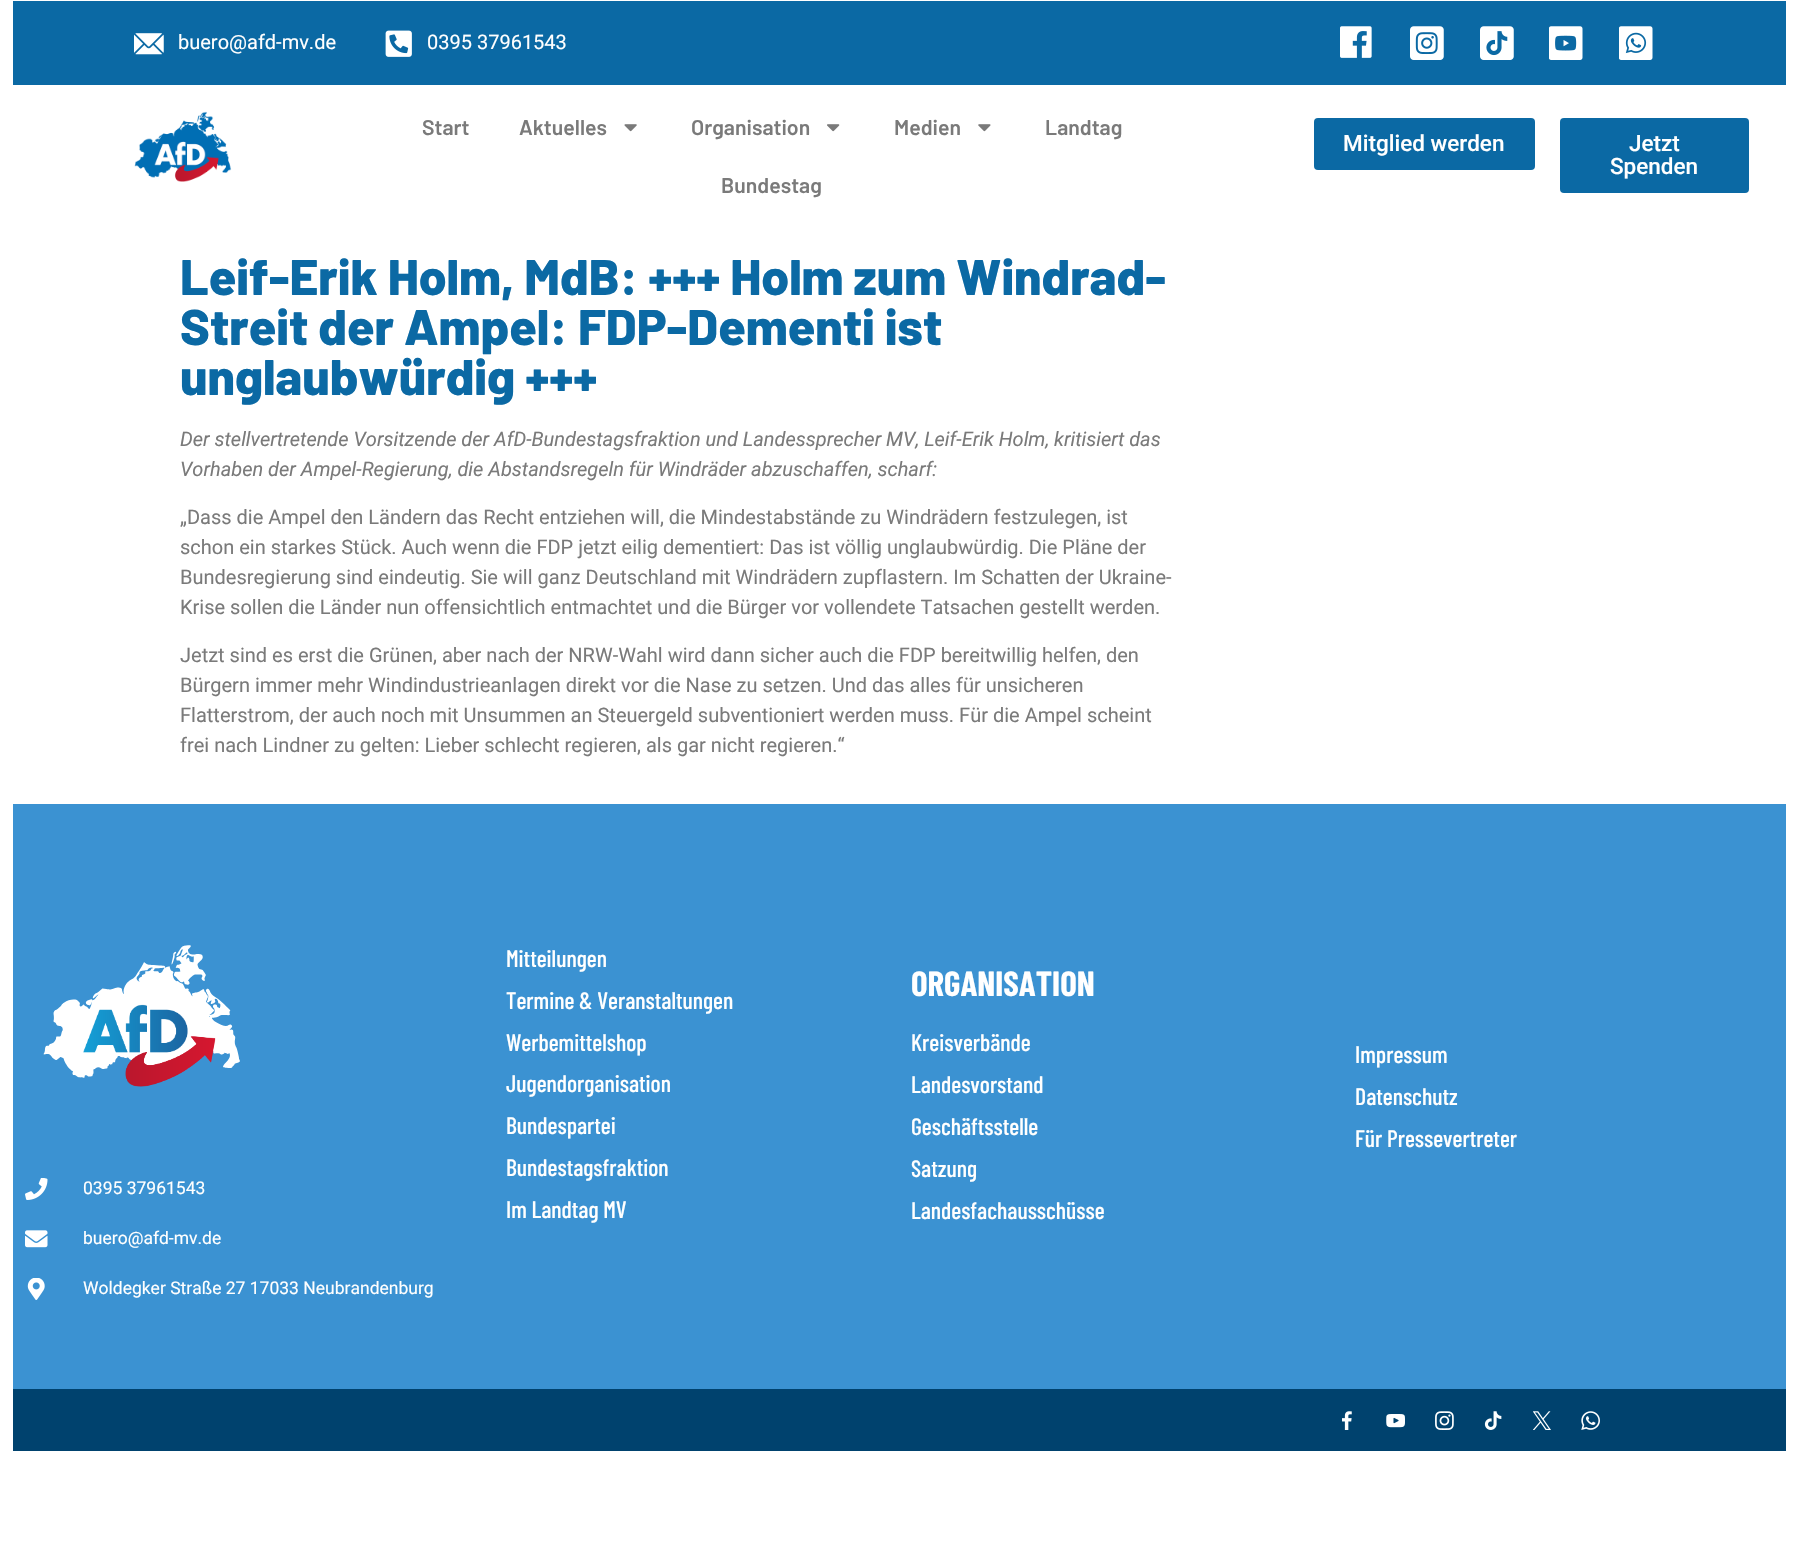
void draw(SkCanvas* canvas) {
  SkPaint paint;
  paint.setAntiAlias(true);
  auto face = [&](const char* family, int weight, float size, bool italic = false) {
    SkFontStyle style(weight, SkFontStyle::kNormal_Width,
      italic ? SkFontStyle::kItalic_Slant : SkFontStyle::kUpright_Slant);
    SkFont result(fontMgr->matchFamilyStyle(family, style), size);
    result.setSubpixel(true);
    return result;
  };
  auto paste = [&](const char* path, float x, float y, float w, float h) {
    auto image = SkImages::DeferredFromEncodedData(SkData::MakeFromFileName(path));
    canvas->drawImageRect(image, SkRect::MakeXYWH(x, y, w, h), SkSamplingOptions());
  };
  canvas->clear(0xffffffff);
  paint.setColor(0xff0b69a4);
  canvas->drawRect(SkRect::MakeXYWH(13, 1, 1773, 84), paint);
  paste("img/1.png", 134, 33, 30, 22);
  paste("img/2.png", 385, 30, 27, 27);
  paste("img/3.png", 1340, 26, 32, 32);
  paste("img/4.png", 1410, 26, 34, 34);
  paste("img/5.png", 1480, 26, 34, 34);
  paste("img/6.png", 1549, 26, 34, 34);
  paste("img/7.png", 1619, 26, 34, 34);
  paste("img/8.png", 134, 111, 98, 71);
  paste("img/9.png", 624, 124, 13, 8);
  paste("img/10.png", 827, 124, 13, 8);
  paste("img/11.png", 978, 124, 13, 8);
  canvas->drawRoundRect(SkRect::MakeXYWH(1314, 118, 221, 52), 4, 4, paint);
  canvas->drawRoundRect(SkRect::MakeXYWH(1560, 118, 189, 75), 4, 4, paint);
  paint.setColor(0xff3b92d2);
  canvas->drawRect(SkRect::MakeXYWH(13, 804, 1773, 585), paint);
  paste("img/12.png", 43, 945, 197, 142);
  paste("img/13.png", 25, 1178, 23, 22);
  paste("img/14.png", 25, 1230, 23, 18);
  paste("img/15.png", 27, 1278, 18, 22);
  paint.setColor(0xff00426e);
  canvas->drawRect(SkRect::MakeXYWH(13, 1389, 1773, 62), paint);
  paste("img/16.png", 1342, 1411, 10, 19);
  paste("img/17.png", 1386, 1414, 19, 14);
  paste("img/18.png", 1435, 1411, 19, 19);
  paste("img/19.png", 1484, 1411, 18, 19);
  paste("img/20.png", 1533, 1411, 18, 19);
  paste("img/21.png", 1581, 1411, 19, 19);
  auto f0 = face("Roboto", 400, 20);
  paint.setColor(0xffffffff);
  canvas->drawString("buero@afd-mv.de", 178, 49, f0, paint);
  canvas->drawString("0395 37961543", 427, 49, f0, paint);
  auto f1 = face("Barlow", 600, 21.25f);
  paint.setColor(0xff7a7a7a);
  {
    const struct { const char* s; float x, y; } items[] = {
      {"Start", 422, 135},
      {"Aktuelles", 519, 135},
      {"Organisation", 691, 135},
      {"Medien", 894, 135},
      {"Landtag", 1045, 135},
      {"Bundestag", 721, 193},
    };
    for (auto [s, x, y] : items) {
      canvas->drawString(s, x, y, f1, paint);
    }
  }
  auto f2 = face("Roboto", 500, 22.5f);
  paint.setColor(0xffffffff);
  {
    const struct { const char* s; float x, y; } items[] = {
      {"Mitglied werden", 1343, 151},
      {"Jetzt", 1629, 151},
      {"Spenden", 1610, 174},
    };
    for (auto [s, x, y] : items) {
      canvas->drawString(s, x, y, f2, paint);
    }
  }
  auto f3 = face("Barlow", 800, 50);
  paint.setColor(0xff0b69a4);
  {
    const struct { const char* s; float x, y; } items[] = {
      {"Leif-Erik Holm, MdB: +++ Holm zum Windrad-", 180, 295},
      {"Streit der Ampel: FDP-Dementi ist", 180, 345},
      {"unglaubwürdig +++", 180, 395},
    };
    for (auto [s, x, y] : items) {
      canvas->drawString(s, x, y, f3, paint);
    }
  }
  auto f4 = face("Roboto", 400, 20, true);
  paint.setColor(0xff7a7a7a);
  canvas->drawString("Der stellvertretende Vorsitzende der AfD-Bundestagsfraktion und Landessprecher MV, Leif-Erik Holm, kritisiert das", 180, 446, f4, paint);
  canvas->drawString("Vorhaben der Ampel-Regierung, die Abstandsregeln für Windräder abzuschaffen, scharf:", 180, 476, f4, paint);
  {
    const struct { const char* s; float x, y; } items[] = {
      {"„Dass die Ampel den Ländern das Recht entziehen will, die Mindestabstände zu Windrädern festzulegen, ist", 180, 524},
      {"schon ein starkes Stück. Auch wenn die FDP jetzt eilig dementiert: Das ist völlig unglaubwürdig. Die Pläne der", 180, 554},
      {"Bundesregierung sind eindeutig. Sie will ganz Deutschland mit Windrädern zupflastern. Im Schatten der Ukraine-", 180, 584},
      {"Krise sollen die Länder nun offensichtlich entmachtet und die Bürger vor vollendete Tatsachen gestellt werden.", 180, 614},
      {"Jetzt sind es erst die Grünen, aber nach der NRW-Wahl wird dann sicher auch die FDP bereitwillig helfen, den", 180, 662},
      {"Bürgern immer mehr Windindustrieanlagen direkt vor die Nase zu setzen. Und das alles für unsicheren", 180, 692},
      {"Flatterstrom, der auch noch mit Unsummen an Steuergeld subventioniert werden muss. Für die Ampel scheint", 180, 722},
      {"frei nach Lindner zu gelten: Lieber schlecht regieren, als gar nicht regieren.“", 180, 752},
    };
    for (auto [s, x, y] : items) {
      canvas->drawString(s, x, y, f0, paint);
    }
  }
  auto f5 = face("Barlow Condensed", 500, 23.75f);
  paint.setColor(0xffffffff);
  {
    const struct { const char* s; float x, y; } items[] = {
      {"Mitteilungen", 506, 967},
      {"Termine & Veranstaltungen", 506, 1009},
      {"Werbemittelshop", 506, 1051},
      {"Jugendorganisation", 506, 1092},
      {"Bundespartei", 506, 1134},
      {"Bundestagsfraktion", 506, 1176},
      {"Im Landtag MV", 506, 1218},
    };
    for (auto [s, x, y] : items) {
      canvas->drawString(s, x, y, f5, paint);
    }
  }
  auto f6 = face("Barlow Condensed", 700, 35);
  canvas->drawString("ORGANISATION", 911, 996, f6, paint);
  {
    const struct { const char* s; float x, y; } items[] = {
      {"Kreisverbände", 911, 1051},
      {"Landesvorstand", 911, 1093},
      {"Geschäftsstelle", 911, 1135},
      {"Satzung", 911, 1177},
      {"Landesfachausschüsse", 911, 1219},
      {"Impressum", 1355, 1063},
      {"Datenschutz", 1355, 1105},
      {"Für Pressevertreter", 1355, 1147},
    };
    for (auto [s, x, y] : items) {
      canvas->drawString(s, x, y, f5, paint);
    }
  }
  auto f7 = face("Roboto", 400, 17.5f);
  {
    const struct { const char* s; float x, y; } items[] = {
      {"0395 37961543", 83, 1194},
      {"buero@afd-mv.de", 83, 1244},
      {"Woldegker Straße 27 17033 Neubrandenburg", 83, 1294},
    };
    for (auto [s, x, y] : items) {
      canvas->drawString(s, x, y, f7, paint);
    }
  }
}
